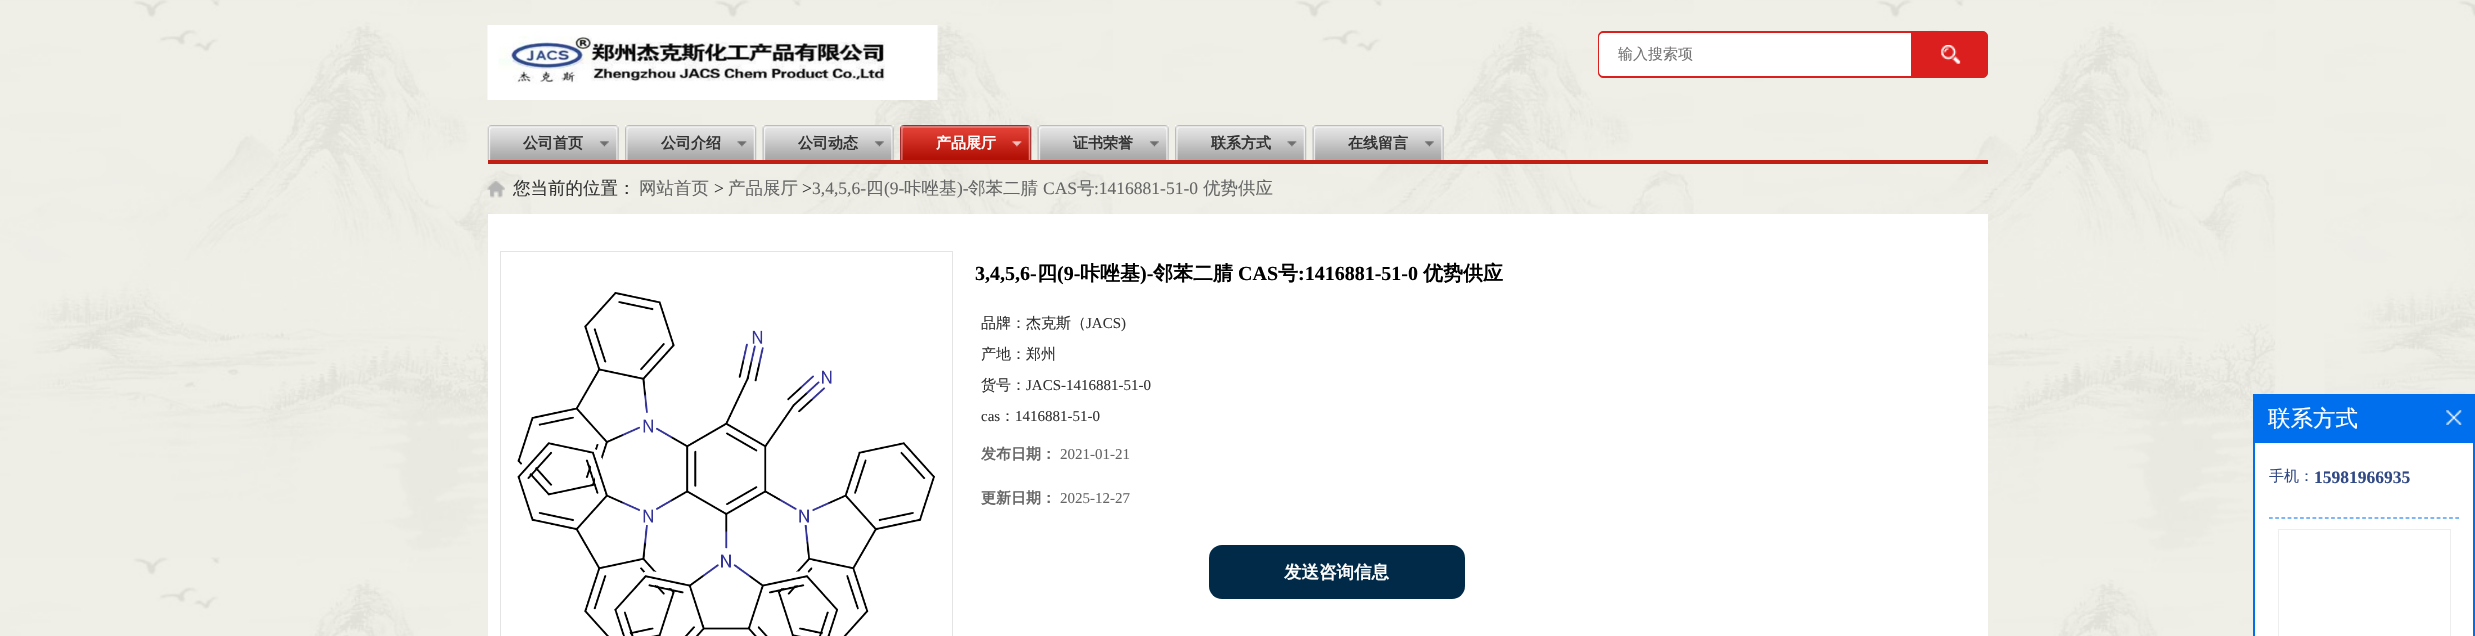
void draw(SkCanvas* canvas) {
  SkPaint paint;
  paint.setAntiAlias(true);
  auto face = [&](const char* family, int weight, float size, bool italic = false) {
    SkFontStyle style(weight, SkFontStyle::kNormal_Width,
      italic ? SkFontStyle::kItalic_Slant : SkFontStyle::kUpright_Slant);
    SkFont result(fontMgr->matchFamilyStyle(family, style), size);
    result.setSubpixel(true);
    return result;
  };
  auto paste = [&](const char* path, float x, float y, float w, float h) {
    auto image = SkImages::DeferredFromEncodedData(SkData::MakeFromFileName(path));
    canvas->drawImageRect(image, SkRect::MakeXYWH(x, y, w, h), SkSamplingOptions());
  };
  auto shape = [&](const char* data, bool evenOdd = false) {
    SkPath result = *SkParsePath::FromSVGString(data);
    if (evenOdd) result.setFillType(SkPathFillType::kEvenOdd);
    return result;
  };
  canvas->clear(0xffffffff);
  paste("img/1.png", 0, 0, 2475, 636);
  paste("img/2.png", 487, 25, 451, 75);
  paint.setColor(0xffdb1f1e);
  canvas->drawRoundRect(SkRect::MakeXYWH(1598.5f, 31.5f, 389, 46), 4.5f, 4.5f, paint);
  paint.setStroke(true);
  paint.setStrokeWidth(1);
  canvas->drawRoundRect(SkRect::MakeXYWH(1598.5f, 31.5f, 389, 46), 4.5f, 4.5f, paint);
  paint.setStroke(false);
  paint.setColor(0xffffffff);
  canvas->drawPath(shape("M1603 33H1911V76H1603C1601 76 1599 74 1599 72V37C1599 35 1601 33 1603 33Z"), paint);
  paste("img/3.png", 1941, 45, 20, 19);
  paint.setColor(0xffc11f14);
  canvas->drawRect(SkRect::MakeXYWH(488, 160, 1500, 4), paint);
  paste("img/4.png", 487, 125, 132, 35);
  paste("img/5.png", 625, 125, 132, 35);
  paste("img/6.png", 762, 125, 132, 35);
  paste("img/7.png", 1031, 125, 1, 35);
  paste("img/8.png", 900, 125, 132, 35);
  paste("img/9.png", 1037, 125, 132, 35);
  paste("img/10.png", 1175, 125, 132, 35);
  paste("img/11.png", 1312, 125, 132, 35);
  paste("img/12.png", 487, 181, 18, 17);
  paint.setColor(0xffffffff);
  canvas->drawRect(SkRect::MakeXYWH(488, 214, 1500, 422), paint);
  paint.setStroke(true);
  paint.setColor(0xffe4e4e4);
  canvas->drawRect(SkRect::MakeXYWH(500.5f, 251.5f, 452, 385), paint);
  paste("img/13.png", 517, 292, 418, 344);
  paint.setStroke(false);
  paint.setColor(0xff002a48);
  canvas->drawRoundRect(SkRect::MakeXYWH(1209, 545, 256, 54), 13, 13, paint);
  paint.setColor(0xff006fed);
  canvas->drawRect(SkRect::MakeXYWH(2253, 394, 222, 242), paint);
  paste("img/14.png", 2446, 410, 16, 15);
  paint.setColor(0xffffffff);
  canvas->drawRect(SkRect::MakeXYWH(2255, 443, 218, 193), paint);
  paint.setStroke(true);
  paint.setStrokeWidth(1.2f);
  paint.setColor(0xff006fed);
  paint.setPathEffect(SkDashPathEffect::Make({{3.75f, 2.46f}}, 0));
  canvas->drawPath(shape("M2269 518H2459"), paint);
  paint.setPathEffect(nullptr);
  paint.setStrokeWidth(1);
  paint.setColor(0xffeeeeee);
  canvas->drawRect(SkRect::MakeXYWH(2278.5f, 529.5f, 172, 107), paint);
  canvas->save();
  canvas->clipRect(SkRect::MakeXYWH(1618, 44, 293, 21));
  auto f0 = face("WenQuanYi Zen Hei", 500, 15);
  paint.setStroke(false);
  paint.setColor(0xff757575);
  canvas->drawString("输入搜索项", 1618, 59, f0, paint);
  canvas->restore();
  auto f1 = face("WenQuanYi Zen Hei", 700, 15);
  paint.setColor(0xff333333);
  {
    const struct { const char* s; float x, y; } items[] = {
      {"公司首页", 523, 148},
      {"公司介绍", 661, 148},
      {"公司动态", 798, 148},
    };
    for (auto [s, x, y] : items) {
      canvas->drawString(s, x, y, f1, paint);
    }
  }
  paint.setColor(0xffffffff);
  canvas->drawString("产品展厅", 936, 148, f1, paint);
  paint.setColor(0xff333333);
  {
    const struct { const char* s; float x, y; } items[] = {
      {"证书荣誉", 1073, 148},
      {"联系方式", 1211, 148},
      {"在线留言", 1348, 148},
    };
    for (auto [s, x, y] : items) {
      canvas->drawString(s, x, y, f1, paint);
    }
  }
  auto f2 = face("WenQuanYi Zen Hei", 500, 17.5f);
  canvas->drawString("您当前的位置：", 513, 194, f2, paint);
  paint.setColor(0xff666666);
  canvas->drawString("网站首页", 639, 194, f2, paint);
  auto f3 = face("Liberation Serif", 400, 17.5f);
  paint.setColor(0xff333333);
  canvas->drawString(">", 714, 194, f3, paint);
  paint.setColor(0xff666666);
  canvas->drawString("产品展厅", 728, 194, f2, paint);
  paint.setColor(0xff333333);
  canvas->drawString(">", 802, 194, f3, paint);
  paint.setColor(0xff666666);
  canvas->drawString("3,4,5,6-", 812, 194, f3, paint);
  canvas->drawString("四", 866, 194, f2, paint);
  canvas->drawString("(9-", 884, 194, f3, paint);
  canvas->drawString("咔唑基", 904, 194, f2, paint);
  canvas->drawString(")-", 957, 194, f3, paint);
  canvas->drawString("邻苯二腈", 968, 194, f2, paint);
  canvas->drawString("CAS", 1043, 194, f3, paint);
  canvas->drawString("号", 1077, 194, f2, paint);
  canvas->drawString(":1416881-51-0", 1094, 194, f3, paint);
  canvas->drawString("优势供应", 1203, 194, f2, paint);
  auto f4 = face("Liberation Serif", 700, 20);
  paint.setColor(0xff000000);
  canvas->drawString("3,4,5,6-", 975, 280, f4, paint);
  auto f5 = face("WenQuanYi Zen Hei", 700, 20);
  canvas->drawString("四", 1037, 280, f5, paint);
  canvas->drawString("(9-", 1057, 280, f4, paint);
  canvas->drawString("咔唑基", 1080, 280, f5, paint);
  canvas->drawString(")-", 1140, 280, f4, paint);
  canvas->drawString("邻苯二腈", 1153, 280, f5, paint);
  canvas->drawString("CAS", 1238, 280, f4, paint);
  canvas->drawString("号", 1278, 280, f5, paint);
  canvas->drawString(":1416881-51-0", 1298, 280, f4, paint);
  canvas->drawString("优势供应", 1423, 280, f5, paint);
  paint.setColor(0xff333333);
  canvas->drawString("品牌：杰克斯（", 981, 328, f0, paint);
  auto f6 = face("Liberation Serif", 400, 15);
  canvas->drawString("JACS)", 1086, 328, f6, paint);
  canvas->drawString("产地：郑州", 981, 359, f0, paint);
  canvas->drawString("货号：", 981, 390, f0, paint);
  canvas->drawString("JACS-1416881-51-0", 1026, 390, f6, paint);
  canvas->drawString("cas", 981, 421, f6, paint);
  canvas->drawString("：", 1000, 421, f0, paint);
  canvas->drawString("1416881-51-0", 1015, 421, f6, paint);
  paint.setColor(0xff666666);
  canvas->drawString("发布日期：", 981, 459, f1, paint);
  canvas->drawString("2021-01-21", 1060, 459, f6, paint);
  canvas->drawString("更新日期：", 981, 503, f1, paint);
  canvas->drawString("2025-12-27", 1060, 503, f6, paint);
  auto f7 = face("WenQuanYi Zen Hei", 700, 17.5f);
  paint.setColor(0xffffffff);
  canvas->drawString("发送咨询信息", 1284, 578, f7, paint);
  auto f8 = face("WenQuanYi Zen Hei", 500, 22.5f);
  canvas->drawString("联系方式", 2268, 426, f8, paint);
  paint.setColor(0xff314985);
  canvas->drawString("手机：", 2269, 481, f0, paint);
  auto f9 = face("Liberation Serif", 700, 17.5f);
  canvas->drawString("15981966935", 2314, 483, f9, paint);
}
